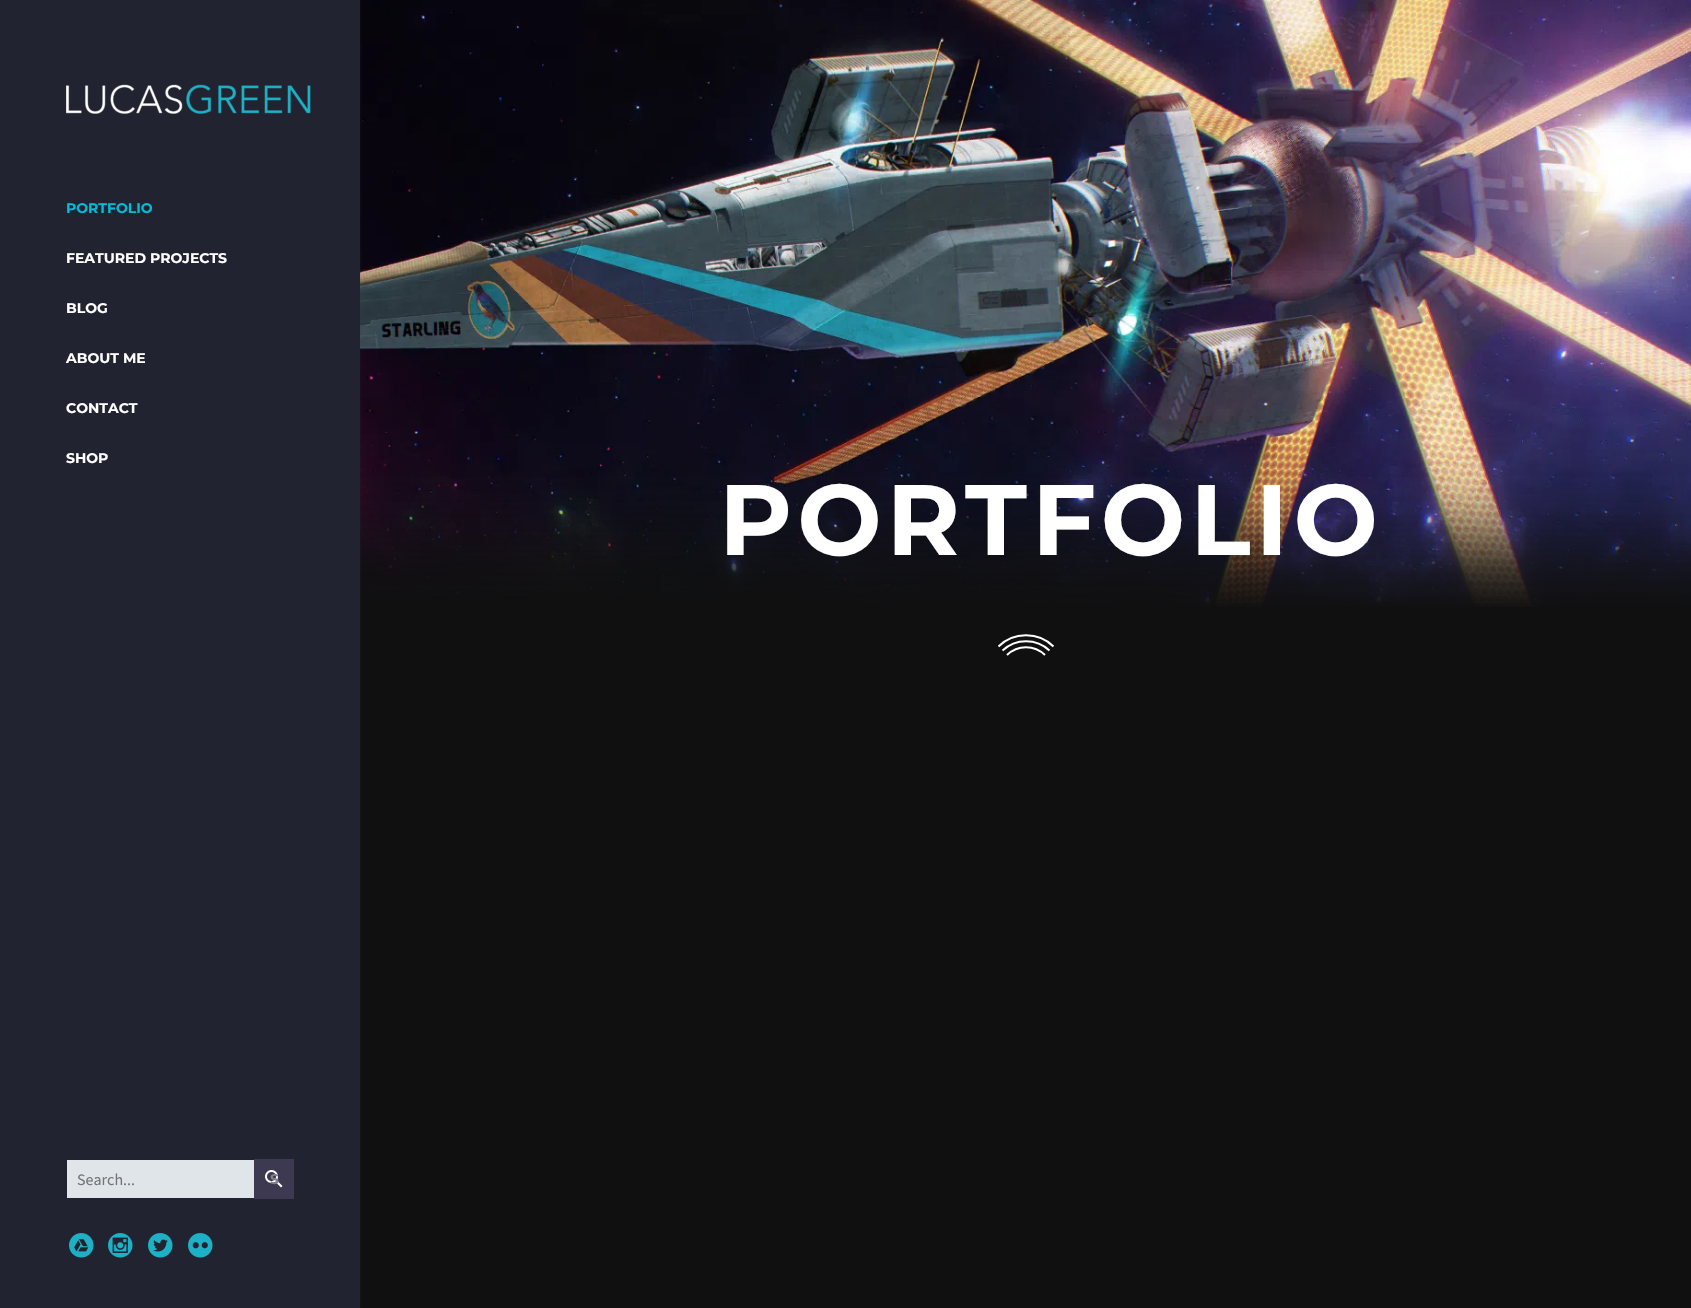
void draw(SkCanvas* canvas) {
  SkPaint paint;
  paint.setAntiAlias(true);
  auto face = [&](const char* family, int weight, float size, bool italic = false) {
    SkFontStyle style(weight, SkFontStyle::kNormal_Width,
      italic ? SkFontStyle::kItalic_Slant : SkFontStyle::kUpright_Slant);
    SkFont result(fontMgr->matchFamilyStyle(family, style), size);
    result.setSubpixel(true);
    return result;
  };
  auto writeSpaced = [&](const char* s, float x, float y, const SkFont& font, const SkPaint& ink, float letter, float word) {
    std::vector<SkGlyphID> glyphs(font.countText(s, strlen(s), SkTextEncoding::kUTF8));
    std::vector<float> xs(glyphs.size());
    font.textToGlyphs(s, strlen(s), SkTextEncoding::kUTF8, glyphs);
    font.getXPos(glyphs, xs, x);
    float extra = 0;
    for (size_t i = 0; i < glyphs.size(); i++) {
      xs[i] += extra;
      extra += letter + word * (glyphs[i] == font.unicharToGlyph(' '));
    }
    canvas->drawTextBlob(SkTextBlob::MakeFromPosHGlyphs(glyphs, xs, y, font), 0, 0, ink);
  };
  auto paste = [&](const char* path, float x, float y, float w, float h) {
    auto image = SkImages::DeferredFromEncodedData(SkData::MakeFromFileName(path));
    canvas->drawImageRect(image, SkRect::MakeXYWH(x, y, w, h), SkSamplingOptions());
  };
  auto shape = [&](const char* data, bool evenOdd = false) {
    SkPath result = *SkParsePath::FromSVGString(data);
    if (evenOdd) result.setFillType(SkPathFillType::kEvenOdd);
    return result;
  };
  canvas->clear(0xff101010);
  paste("img/7.png", 360, 0, 1331, 607);
  paint.setColor(0x33384554);
  paint.setMaskFilter(SkMaskFilter::MakeBlur(kNormal_SkBlurStyle, 1));
  canvas->drawRect(SkRect::MakeXYWH(0, 0, 360, 1308), paint);
  paint.setMaskFilter(nullptr);
  paint.setColor(0xff212331);
  canvas->drawRect(SkRect::MakeXYWH(0, 0, 360, 1308), paint);
  paste("img/1.png", 66, 84, 245, 30);
  paint.setColor(0xffe0e5e9);
  canvas->drawRect(SkRect::MakeXYWH(67, 1160, 187, 38), paint);
  paint.setColor(0xff3d3950);
  canvas->drawRect(SkRect::MakeXYWH(254, 1159, 40, 40), paint);
  paste("img/2.png", 265, 1170, 18, 18);
  paste("img/3.png", 69, 1233, 25, 25);
  paste("img/4.png", 108, 1233, 25, 25);
  paste("img/5.png", 148, 1233, 25, 25);
  paste("img/6.png", 188, 1233, 25, 25);
  paint.setStroke(true);
  paint.setStrokeWidth(2);
  paint.setColor(0xffffffff);
  canvas->drawPath(shape("M998.5 646.5C1013.5 631.5 1038.5 631.5 1053.5 646.5M1002.5 650.5C1015.5 638 1036.5 638 1049.5 650.5M1007 655C1017.5 644.5 1034.5 644.5 1045 655"), paint);
  auto f0 = face("Montserrat", 700, 14);
  paint.setStroke(false);
  paint.setColor(0xff00bcd4);
  canvas->drawString("PORTFOLIO", 66, 213, f0, paint);
  paint.setColor(0xffffffff);
  {
    const struct { const char* s; float x, y; } items[] = {
      {"FEATURED PROJECTS", 66, 263},
      {"BLOG", 66, 313},
      {"ABOUT ME", 66, 363},
      {"CONTACT", 66, 413},
      {"SHOP", 66, 463},
    };
    for (auto [s, x, y] : items) {
      canvas->drawString(s, x, y, f0, paint);
    }
  }
  auto f1 = face("Source Sans Pro", 400, 16);
  paint.setColor(0xff757575);
  canvas->drawString("Search...", 77, 1185, f1, paint);
  paint.setColor(0xff827f8e);
  canvas->drawString("S", 270, 1184, f0, paint);
  auto f2 = face("Montserrat", 700, 100);
  paint.setColor(0xffffffff);
  writeSpaced("PORTFOLIO", 719, 555, f2, paint, 5, 0);
}
